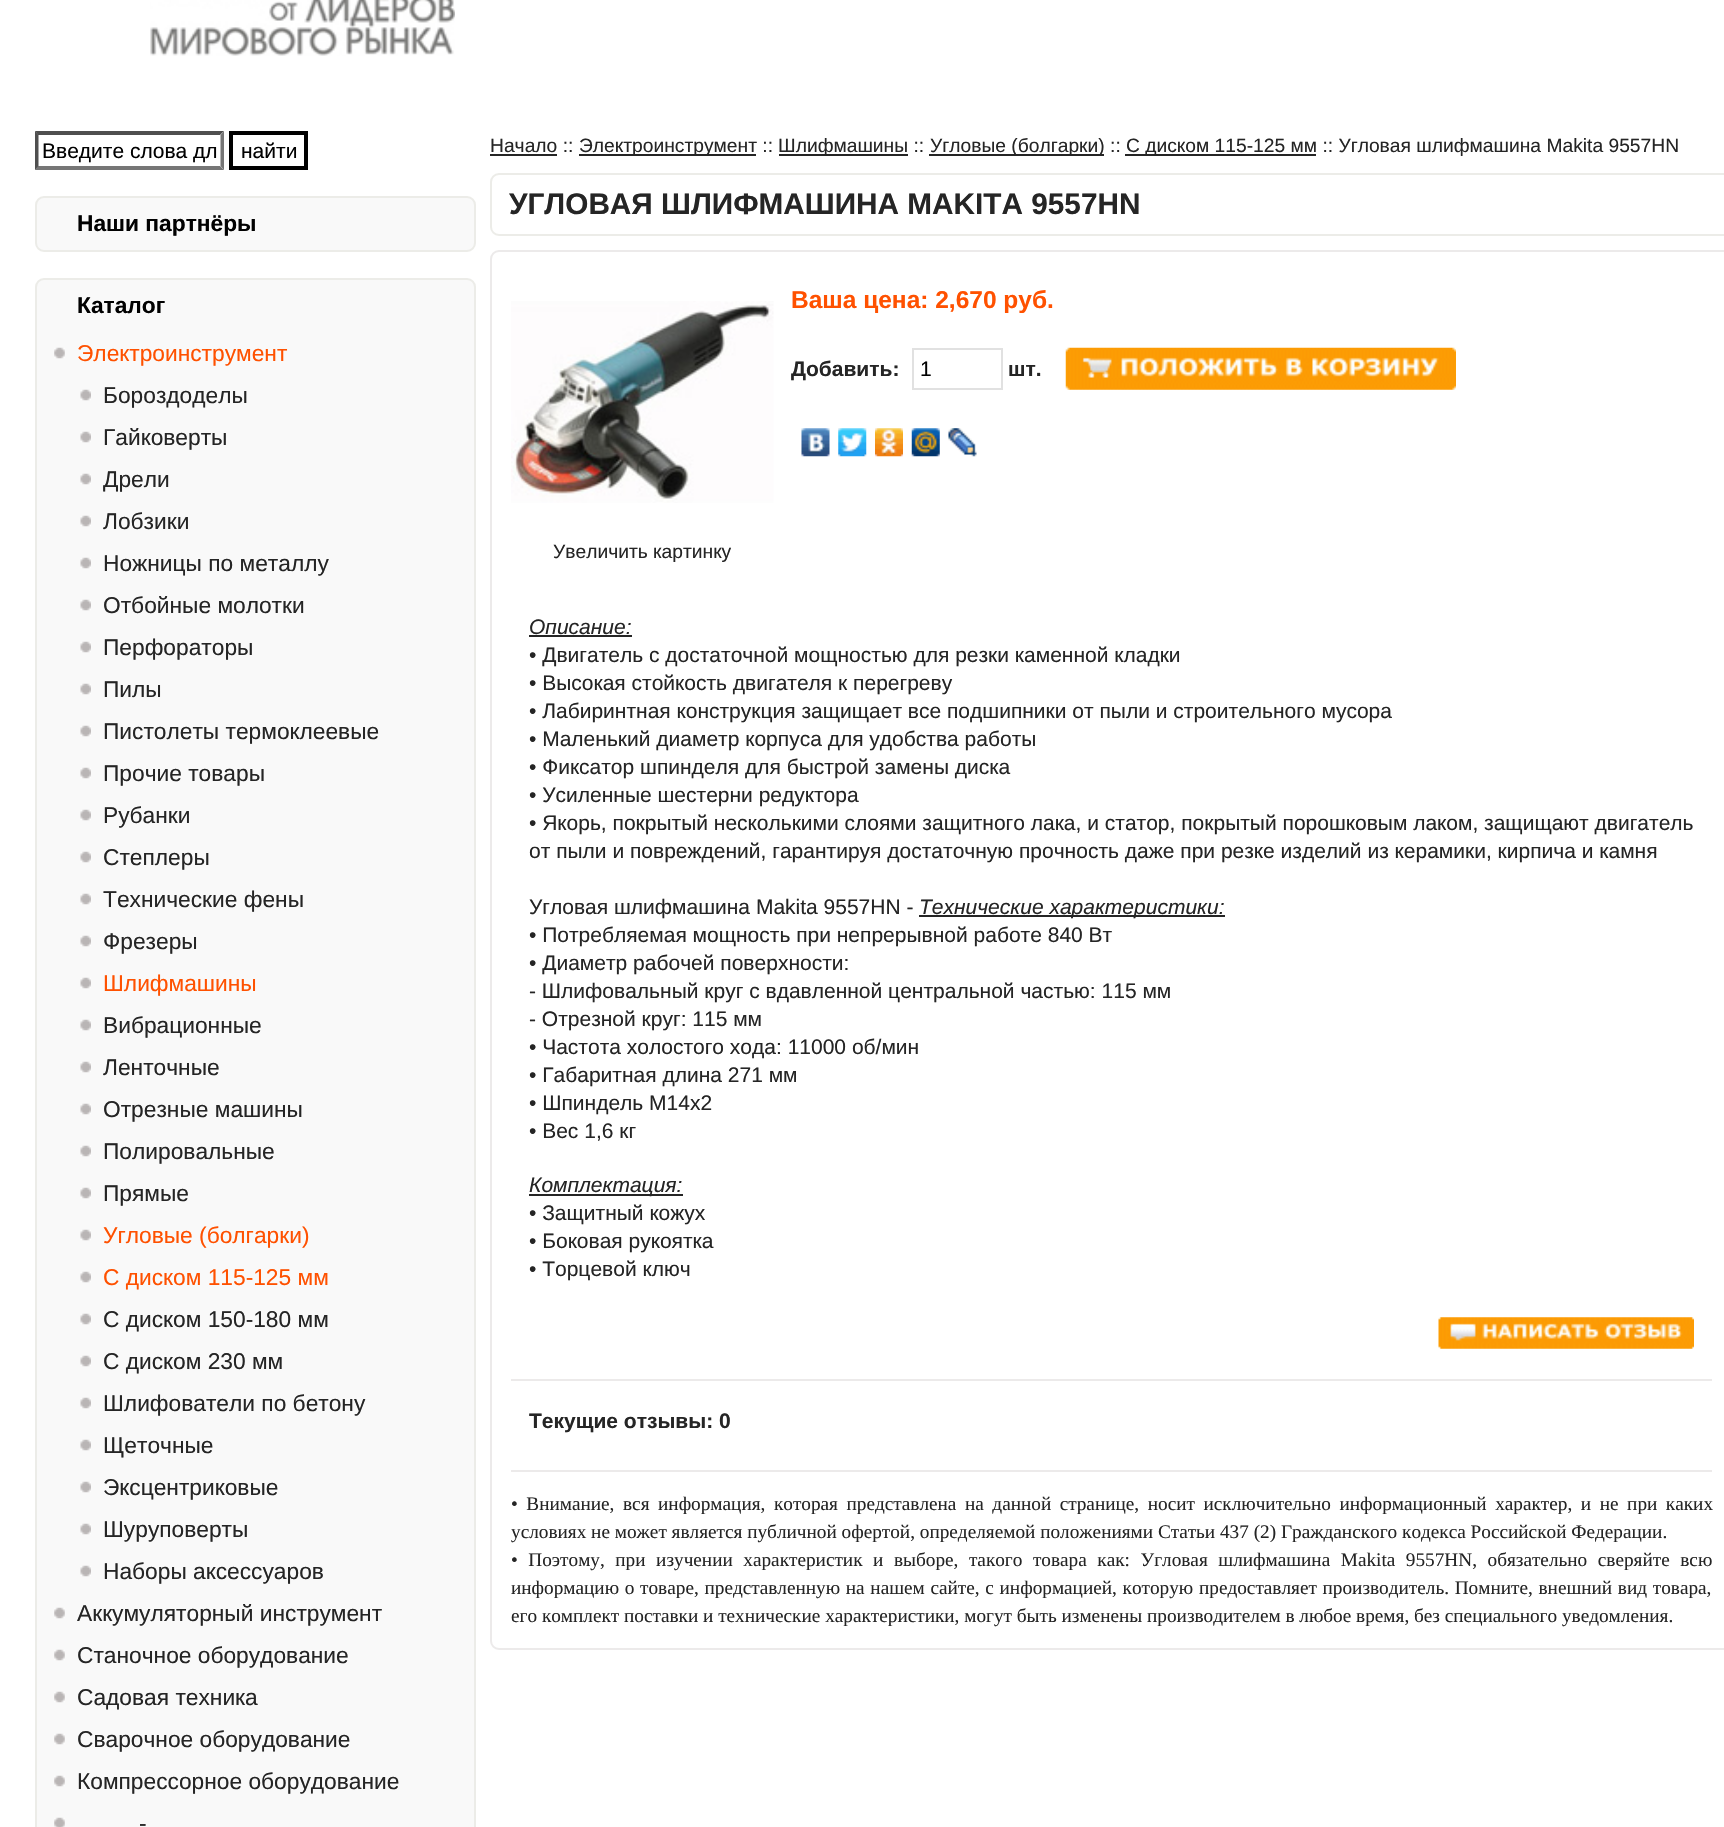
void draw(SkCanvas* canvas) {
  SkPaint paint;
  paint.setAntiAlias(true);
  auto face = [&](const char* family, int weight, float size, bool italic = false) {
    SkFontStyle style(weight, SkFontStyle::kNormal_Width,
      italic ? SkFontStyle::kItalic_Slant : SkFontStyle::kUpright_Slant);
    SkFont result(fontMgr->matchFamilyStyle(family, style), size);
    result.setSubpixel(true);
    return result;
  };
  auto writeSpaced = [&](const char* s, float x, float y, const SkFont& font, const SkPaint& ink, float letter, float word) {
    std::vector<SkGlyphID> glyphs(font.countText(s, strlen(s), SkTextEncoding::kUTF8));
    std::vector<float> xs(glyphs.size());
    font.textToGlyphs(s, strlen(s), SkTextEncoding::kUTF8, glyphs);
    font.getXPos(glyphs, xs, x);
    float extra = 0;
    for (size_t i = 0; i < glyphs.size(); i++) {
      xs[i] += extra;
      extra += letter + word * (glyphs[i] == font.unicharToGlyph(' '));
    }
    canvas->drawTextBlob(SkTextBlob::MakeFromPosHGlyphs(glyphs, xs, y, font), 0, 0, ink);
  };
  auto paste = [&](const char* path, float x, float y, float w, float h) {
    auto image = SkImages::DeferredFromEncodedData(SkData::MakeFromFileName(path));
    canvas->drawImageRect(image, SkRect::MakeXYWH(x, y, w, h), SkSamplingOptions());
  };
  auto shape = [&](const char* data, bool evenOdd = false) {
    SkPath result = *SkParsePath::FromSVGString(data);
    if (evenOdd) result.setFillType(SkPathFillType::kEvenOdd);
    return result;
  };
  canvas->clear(0xffffffff);
  paste("img/1.png", 150, 0, 305, 56);
  paint.setColor(0xff4f4f4f);
  canvas->drawPath(shape("M35 131H224L220 135H38Z"), paint);
  paint.setColor(0xff767676);
  canvas->drawPath(shape("M224 131V170L220.5 166V135Z"), paint);
  canvas->drawPath(shape("M224 170H35L38 166H220Z"), paint);
  paint.setColor(0xff4f4f4f);
  canvas->drawPath(shape("M35 170V131L38.5 135V166Z"), paint);
  paint.setStroke(true);
  paint.setStrokeWidth(4);
  paint.setColor(0xff000000);
  canvas->drawRect(SkRect::MakeXYWH(231, 133, 75, 35), paint);
  paint.setStroke(false);
  paint.setColor(0xfff9f9f9);
  canvas->drawRoundRect(SkRect::MakeXYWH(36, 197, 439, 54), 8, 8, paint);
  paint.setStroke(true);
  paint.setStrokeWidth(2);
  paint.setColor(0xffecece8);
  canvas->drawRoundRect(SkRect::MakeXYWH(36, 197, 439, 54), 8, 8, paint);
  paint.setStroke(false);
  paint.setColor(0xfff9f9f9);
  canvas->drawRoundRect(SkRect::MakeXYWH(36, 279, 439, 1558), 8, 8, paint);
  paint.setStroke(true);
  paint.setColor(0xffecece8);
  canvas->drawRoundRect(SkRect::MakeXYWH(36, 279, 439, 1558), 8, 8, paint);
  paste("img/2.png", 54, 347, 11, 12);
  paste("img/3.png", 80, 389, 11, 12);
  paste("img/3.png", 80, 431, 11, 12);
  paste("img/3.png", 80, 473, 11, 12);
  paste("img/3.png", 80, 515, 11, 12);
  paste("img/3.png", 80, 557, 11, 12);
  paste("img/3.png", 80, 599, 11, 12);
  paste("img/3.png", 80, 641, 11, 12);
  paste("img/3.png", 80, 683, 11, 12);
  paste("img/3.png", 80, 725, 11, 12);
  paste("img/3.png", 80, 767, 11, 12);
  paste("img/3.png", 80, 809, 11, 12);
  paste("img/3.png", 80, 851, 11, 12);
  paste("img/3.png", 80, 893, 11, 12);
  paste("img/3.png", 80, 935, 11, 12);
  paste("img/3.png", 80, 977, 11, 12);
  paste("img/3.png", 80, 1019, 11, 12);
  paste("img/3.png", 80, 1061, 11, 12);
  paste("img/3.png", 80, 1103, 11, 12);
  paste("img/3.png", 80, 1145, 11, 12);
  paste("img/3.png", 80, 1187, 11, 12);
  paste("img/3.png", 80, 1229, 11, 12);
  paste("img/3.png", 80, 1271, 11, 12);
  paste("img/3.png", 80, 1313, 11, 12);
  paste("img/3.png", 80, 1355, 11, 12);
  paste("img/3.png", 80, 1397, 11, 12);
  paste("img/3.png", 80, 1439, 11, 12);
  paste("img/3.png", 80, 1481, 11, 12);
  paste("img/3.png", 80, 1523, 11, 12);
  paste("img/3.png", 80, 1565, 11, 12);
  paste("img/2.png", 54, 1607, 11, 12);
  paste("img/2.png", 54, 1649, 11, 12);
  paste("img/2.png", 54, 1691, 11, 12);
  paste("img/2.png", 54, 1733, 11, 12);
  paste("img/2.png", 54, 1775, 11, 12);
  paste("img/4.png", 54, 1817, 11, 10);
  paint.setStroke(false);
  {
    const struct { float x, y, w, h; SkColor color; } items[] = {
      {490, 154, 67, 2, 0xff252525},
      {579, 154, 177, 2, 0xff252525},
      {779, 154, 129, 2, 0xff252525},
      {929, 154, 175, 2, 0xff252525},
      {1125, 154, 191, 2, 0xff252525},
    };
    for (auto [x, y, w, h, color] : items) {
      paint.setColor(color);
      canvas->drawRect(SkRect::MakeXYWH(x, y, w, h), paint);
    }
  }
  paint.setStroke(true);
  paint.setColor(0xffecece8);
  canvas->drawRoundRect(SkRect::MakeXYWH(491, 174, 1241, 61), 8, 8, paint);
  paint.setColor(0xffeceaea);
  canvas->drawRoundRect(SkRect::MakeXYWH(491, 251, 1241, 1398), 8, 8, paint);
  paint.setColor(0xffe1e1e1);
  canvas->drawRect(SkRect::MakeXYWH(913, 349, 89, 40), paint);
  paste("img/5.png", 1065, 347, 391, 43);
  paste("img/6.png", 801, 428, 29, 29);
  paste("img/7.png", 838, 428, 29, 29);
  paste("img/8.png", 875, 428, 28, 29);
  paste("img/9.png", 911, 428, 29, 29);
  paste("img/10.png", 948, 428, 29, 29);
  paste("img/11.png", 511, 301, 263, 202);
  paint.setStroke(false);
  {
    const struct { float x, y, w, h; SkColor color; } items[] = {
      {529, 635, 103, 2, 0xff252525},
      {919, 915, 306, 2, 0xff252525},
      {529, 1194, 154, 2, 0xff252525},
      {511, 1379, 1201, 2, 0xffeceaea},
    };
    for (auto [x, y, w, h, color] : items) {
      paint.setColor(color);
      canvas->drawRect(SkRect::MakeXYWH(x, y, w, h), paint);
    }
  }
  paste("img/12.png", 1438, 1317, 256, 32);
  canvas->drawRect(SkRect::MakeXYWH(511, 1470, 1201, 2), paint);
  auto f0 = face("Liberation Sans", 400, 21);
  paint.setColor(0xff010101);
  canvas->drawString("Введите слова дл", 42, 158, f0, paint);
  canvas->drawString("найти", 241, 158, f0, paint);
  auto f1 = face("Liberation Sans", 700, 22.75f);
  canvas->drawString("Наши партнёры", 77, 231, f1, paint);
  canvas->drawString("Каталог", 77, 313, f1, paint);
  auto f2 = face("Liberation Sans", 400, 22.75f);
  paint.setColor(0xffff5100);
  canvas->drawString("Электроинструмент", 77, 361, f2, paint);
  paint.setColor(0xff252525);
  {
    const struct { const char* s; float x, y; } items[] = {
      {"Бороздоделы", 103, 403},
      {"Гайковерты", 103, 445},
      {"Дрели", 103, 487},
      {"Лобзики", 103, 529},
      {"Ножницы по металлу", 103, 571},
      {"Отбойные молотки", 103, 613},
      {"Перфораторы", 103, 655},
      {"Пилы", 103, 697},
      {"Пистолеты термоклеевые", 103, 739},
      {"Прочие товары", 103, 781},
      {"Рубанки", 103, 823},
      {"Степлеры", 103, 865},
      {"Технические фены", 103, 907},
      {"Фрезеры", 103, 949},
    };
    for (auto [s, x, y] : items) {
      canvas->drawString(s, x, y, f2, paint);
    }
  }
  paint.setColor(0xffff5100);
  canvas->drawString("Шлифмашины", 103, 991, f2, paint);
  paint.setColor(0xff252525);
  {
    const struct { const char* s; float x, y; } items[] = {
      {"Вибрационные", 103, 1033},
      {"Ленточные", 103, 1075},
      {"Отрезные машины", 103, 1117},
      {"Полировальные", 103, 1159},
      {"Прямые", 103, 1201},
    };
    for (auto [s, x, y] : items) {
      canvas->drawString(s, x, y, f2, paint);
    }
  }
  paint.setColor(0xffff5100);
  canvas->drawString("Угловые (болгарки)", 103, 1243, f2, paint);
  canvas->drawString("С диском 115-125 мм", 103, 1285, f2, paint);
  paint.setColor(0xff252525);
  {
    const struct { const char* s; float x, y; } items[] = {
      {"С диском 150-180 мм", 103, 1327},
      {"С диском 230 мм", 103, 1369},
      {"Шлифователи по бетону", 103, 1411},
      {"Щеточные", 103, 1453},
      {"Эксцентриковые", 103, 1495},
      {"Шуруповерты", 103, 1537},
      {"Наборы аксессуаров", 103, 1579},
      {"Аккумуляторный инструмент", 77, 1621},
      {"Станочное оборудование", 77, 1663},
      {"Садовая техника", 77, 1705},
      {"Сварочное оборудование", 77, 1747},
      {"Компрессорное оборудование", 77, 1789},
      {"-", 139, 1831},
    };
    for (auto [s, x, y] : items) {
      canvas->drawString(s, x, y, f2, paint);
    }
  }
  auto f3 = face("Liberation Sans", 400, 19.25f);
  {
    const struct { const char* s; float x, y; } items[] = {
      {"Начало ::", 490, 152},
      {"Электроинструмент ::", 579, 152},
      {"Шлифмашины ::", 778, 152},
      {"Угловые (болгарки) ::", 930, 152},
      {"С диском 115-125 мм :: Угловая шлифмашина Makita 9557HN", 1126, 152},
    };
    for (auto [s, x, y] : items) {
      canvas->drawString(s, x, y, f3, paint);
    }
  }
  auto f4 = face("Liberation Sans", 700, 29.75f);
  canvas->drawString("УГЛОВАЯ ШЛИФМАШИНА MAKITA 9557HN", 509, 214, f4, paint);
  auto f5 = face("Liberation Sans", 700, 24.5f);
  paint.setColor(0xffff5100);
  canvas->drawString("Ваша цена: 2,670 руб.", 791, 308, f5, paint);
  auto f6 = face("Liberation Sans", 700, 21);
  paint.setColor(0xff252525);
  canvas->drawString("Добавить:", 791, 376, f6, paint);
  paint.setColor(0xff010101);
  canvas->drawString("1", 920, 376, f0, paint);
  paint.setColor(0xff252525);
  canvas->drawString("шт.", 1008, 376, f6, paint);
  canvas->drawString("Увеличить картинку", 553, 558, f3, paint);
  auto f7 = face("Liberation Sans", 400, 21, true);
  canvas->drawString("Описание:", 529, 634, f7, paint);
  {
    const struct { const char* s; float x, y; } items[] = {
      {"• Двигатель с достаточной мощностью для резки каменной кладки", 529, 662},
      {"• Высокая стойкость двигателя к перегреву", 529, 690},
      {"• Лабиринтная конструкция защищает все подшипники от пыли и строительного мусора", 529, 718},
      {"• Маленький диаметр корпуса для удобства работы", 529, 746},
      {"• Фиксатор шпинделя для быстрой замены диска", 529, 774},
      {"• Усиленные шестерни редуктора", 529, 802},
      {"• Якорь, покрытый несколькими слоями защитного лака, и статор, покрытый порошковым лаком, защищают двигатель", 529, 830},
      {"от пыли и повреждений, гарантируя достаточную прочность даже при резке изделий из керамики, кирпича и камня", 529, 858},
      {"Угловая шлифмашина Makita 9557HN -", 529, 914},
    };
    for (auto [s, x, y] : items) {
      canvas->drawString(s, x, y, f0, paint);
    }
  }
  canvas->drawString("Технические характеристики:", 919, 914, f7, paint);
  {
    const struct { const char* s; float x, y; } items[] = {
      {"• Потребляемая мощность при непрерывной работе 840 Вт", 529, 942},
      {"• Диаметр рабочей поверхности:", 529, 970},
      {"- Шлифовальный круг с вдавленной центральной частью: 115 мм", 529, 998},
      {"- Отрезной круг: 115 мм", 529, 1026},
      {"• Частота холостого хода: 11000 об/мин", 529, 1054},
      {"• Габаритная длина 271 мм", 529, 1082},
      {"• Шпиндель М14х2", 529, 1110},
      {"• Вес 1,6 кг", 529, 1138},
    };
    for (auto [s, x, y] : items) {
      canvas->drawString(s, x, y, f0, paint);
    }
  }
  canvas->drawString("Комплектация:", 529, 1192, f7, paint);
  {
    const struct { const char* s; float x, y; } items[] = {
      {"• Защитный кожух", 529, 1220},
      {"• Боковая рукоятка", 529, 1248},
      {"• Торцевой ключ", 529, 1276},
    };
    for (auto [s, x, y] : items) {
      canvas->drawString(s, x, y, f0, paint);
    }
  }
  canvas->drawString("Текущие отзывы: 0", 529, 1428, f6, paint);
  auto f8 = face("Liberation Serif", 400, 19.25f);
  writeSpaced("• Внимание, вся информация, которая представлена на данной странице, носит исключительно информационный характер, и не при каких", 511, 1510, f8, paint, 0, 3.75f);
  canvas->drawString("условиях не может является публичной офертой, определяемой положениями Статьи 437 (2) Гражданского кодекса Российской Федерации.", 511, 1538, f8, paint);
  writeSpaced("• Поэтому, при изучении характеристик и выборе, такого товара как: Угловая шлифмашина Makita 9557HN, обязательно сверяйте всю", 511, 1566, f8, paint, 0, 5.75f);
  writeSpaced("информацию о товаре, представленную на нашем сайте, с информацией, которую предоставляет производитель. Помните, внешний вид товара,", 511, 1594, f8, paint, 0, 0.9f);
  canvas->drawString("его комплект поставки и технические характеристики, могут быть изменены производителем в любое время, без специального уведомления.", 511, 1622, f8, paint);
}
